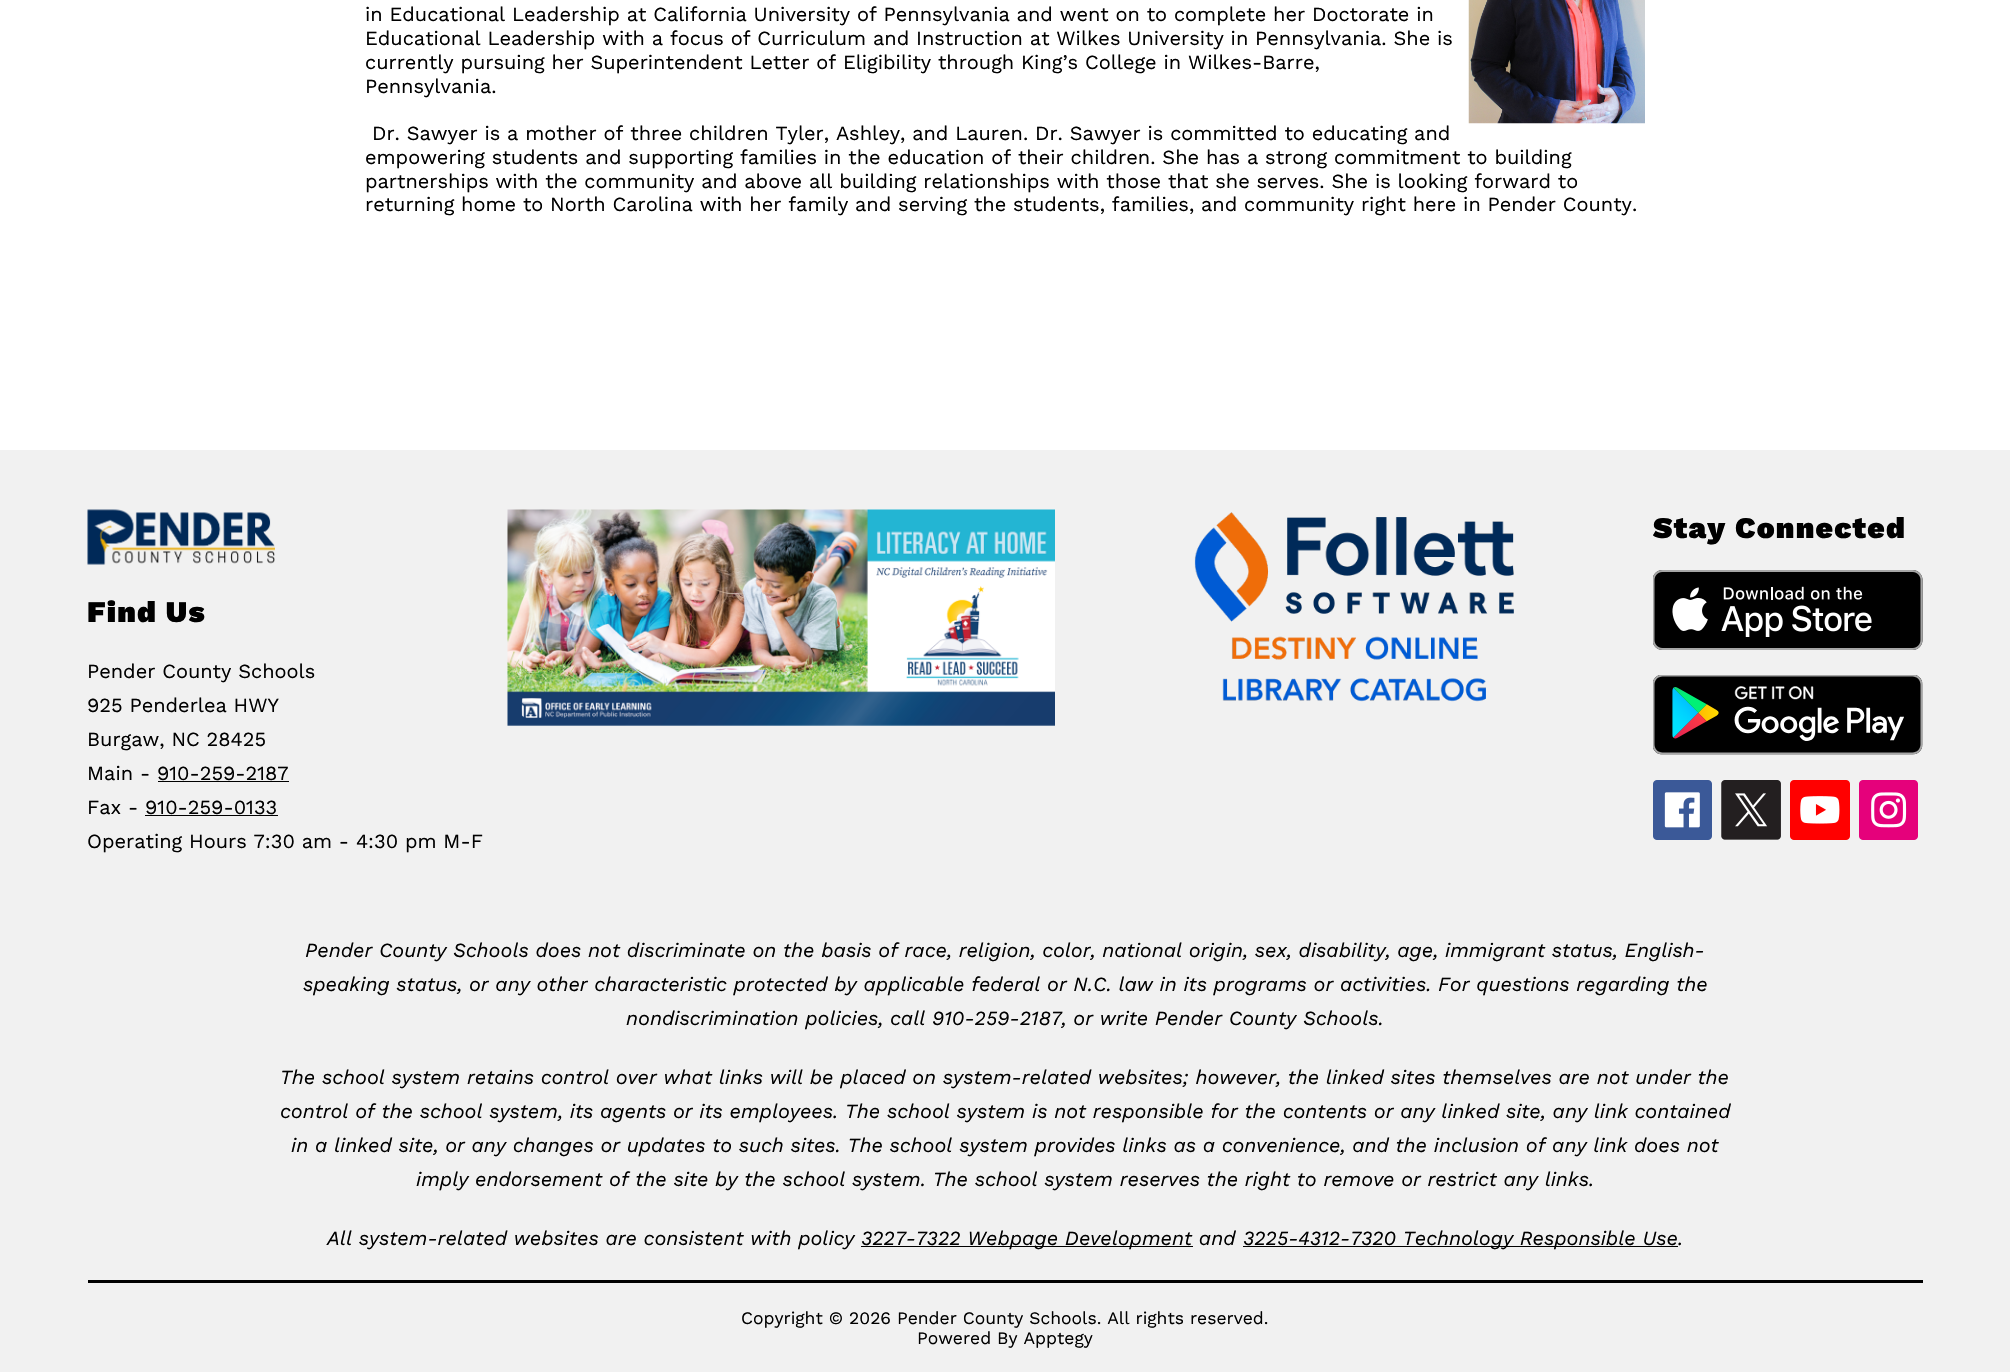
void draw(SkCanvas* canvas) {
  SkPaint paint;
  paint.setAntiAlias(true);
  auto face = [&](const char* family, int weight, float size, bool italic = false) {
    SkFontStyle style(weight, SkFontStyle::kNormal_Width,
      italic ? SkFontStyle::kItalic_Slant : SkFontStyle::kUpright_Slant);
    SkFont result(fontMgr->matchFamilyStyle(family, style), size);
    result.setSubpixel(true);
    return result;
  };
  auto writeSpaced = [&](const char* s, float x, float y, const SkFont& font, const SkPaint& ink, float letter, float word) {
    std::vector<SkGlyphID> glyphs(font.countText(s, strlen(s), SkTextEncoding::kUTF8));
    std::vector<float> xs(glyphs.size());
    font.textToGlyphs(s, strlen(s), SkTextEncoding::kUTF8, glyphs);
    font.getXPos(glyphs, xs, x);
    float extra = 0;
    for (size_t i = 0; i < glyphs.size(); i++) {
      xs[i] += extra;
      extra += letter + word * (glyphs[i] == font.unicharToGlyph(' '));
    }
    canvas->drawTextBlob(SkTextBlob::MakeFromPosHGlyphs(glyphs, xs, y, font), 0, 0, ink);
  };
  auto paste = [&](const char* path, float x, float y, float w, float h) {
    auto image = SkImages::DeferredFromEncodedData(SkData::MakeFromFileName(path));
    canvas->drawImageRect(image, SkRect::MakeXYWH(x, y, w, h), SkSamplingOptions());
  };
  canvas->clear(0xffffffff);
  paste("img/1.png", 1468, 0, 177, 124);
  paint.setColor(0xfff1f1f1);
  canvas->drawRect(SkRect::MakeXYWH(0, 450, 2010, 922), paint);
  paste("img/2.png", 507, 509, 548, 217);
  paste("img/3.png", 1194, 512, 320, 190);
  paste("img/4.png", 1653, 570, 270, 80);
  paste("img/5.png", 1653, 675, 270, 80);
  paste("img/6.png", 1653, 780, 59, 60);
  paste("img/7.png", 1721, 780, 60, 60);
  paste("img/8.png", 1790, 780, 60, 60);
  paste("img/9.png", 1859, 780, 59, 60);
  paste("img/10.png", 87, 509, 188, 56);
  {
    const struct { float x, y, w, h; SkColor color; } items[] = {
      {158, 781, 131, 1, 0xff000000},
      {145, 815, 133, 1, 0xff000000},
      {861, 1246, 332, 1, 0xff000000},
      {1243, 1246, 435, 1, 0xff000000},
      {88, 1280, 1835, 3, 0xff000000},
    };
    for (auto [x, y, w, h, color] : items) {
      paint.setColor(color);
      canvas->drawRect(SkRect::MakeXYWH(x, y, w, h), paint);
    }
  }
  auto f0 = face("Work Sans", 400, 20);
  {
    const struct { const char* s; float x, y; } items[] = {
      {"in Educational Leadership at California University of Pennsylvania and went on to complete her Doctorate in", 365, 21},
      {"Educational Leadership with a focus of Curriculum and Instruction at Wilkes University in Pennsylvania. She is", 365, 45},
      {"currently pursuing her Superintendent Letter of Eligibility through King’s College in Wilkes-Barre,", 365, 69},
      {"Pennsylvania.", 365, 93},
      {"Dr. Sawyer is a mother of three children Tyler, Ashley, and Lauren. Dr. Sawyer is committed to educating and", 372, 140},
      {"empowering students and supporting families in the education of their children. She has a strong commitment to building", 365, 164},
      {"partnerships with the community and above all building relationships with those that she serves. She is looking forward to", 365, 188},
      {"returning home to North Carolina with her family and serving the students, families, and community right here in Pender County.", 365, 211},
    };
    for (auto [s, x, y] : items) {
      canvas->drawString(s, x, y, f0, paint);
    }
  }
  auto f1 = face("Work Sans", 900, 30);
  writeSpaced("Stay Connected", 1653, 538, f1, paint, 1.25f, 0);
  writeSpaced("Find Us", 87, 622, f1, paint, 1.25f, 0);
  {
    const struct { const char* s; float x, y; } items[] = {
      {"Pender County Schools", 87, 678},
      {"925 Penderlea HWY", 87, 712},
      {"Burgaw, NC 28425", 87, 746},
      {"Main - 910-259-2187", 87, 780},
      {"Fax - 910-259-0133", 87, 814},
      {"Operating Hours 7:30 am - 4:30 pm M-F", 87, 848},
    };
    for (auto [s, x, y] : items) {
      canvas->drawString(s, x, y, f0, paint);
    }
  }
  auto f2 = face("Work Sans", 400, 20, true);
  {
    const struct { const char* s; float x, y; } items[] = {
      {"Pender County Schools does not discriminate on the basis of race, religion, color, national origin, sex, disability, age, immigrant status, English-", 305, 957},
      {"speaking status, or any other characteristic protected by applicable federal or N.C. law in its programs or activities. For questions regarding the", 303, 991},
      {"nondiscrimination policies, call 910-259-2187, or write Pender County Schools.", 626, 1025},
      {"The school system retains control over what links will be placed on system-related websites; however, the linked sites themselves are not under the", 280, 1084},
      {"control of the school system, its agents or its employees. The school system is not responsible for the contents or any linked site, any link contained", 280, 1118},
      {"in a linked site, or any changes or updates to such sites. The school system provides links as a convenience, and the inclusion of any link does not", 291, 1152},
      {"imply endorsement of the site by the school system. The school system reserves the right to remove or restrict any links.", 416, 1186},
      {"All system-related websites are consistent with policy", 327, 1245},
      {"3227-7322 Webpage Development and", 861, 1245},
      {"3225-4312-7320 Technology Responsible Use.", 1243, 1245},
    };
    for (auto [s, x, y] : items) {
      canvas->drawString(s, x, y, f2, paint);
    }
  }
  auto f3 = face("Work Sans", 400, 17.5f);
  canvas->drawString("Copyright © 2026 Pender County Schools. All rights reserved.", 741, 1324, f3, paint);
  canvas->drawString("Powered By Apptegy", 917, 1344, f3, paint);
}
